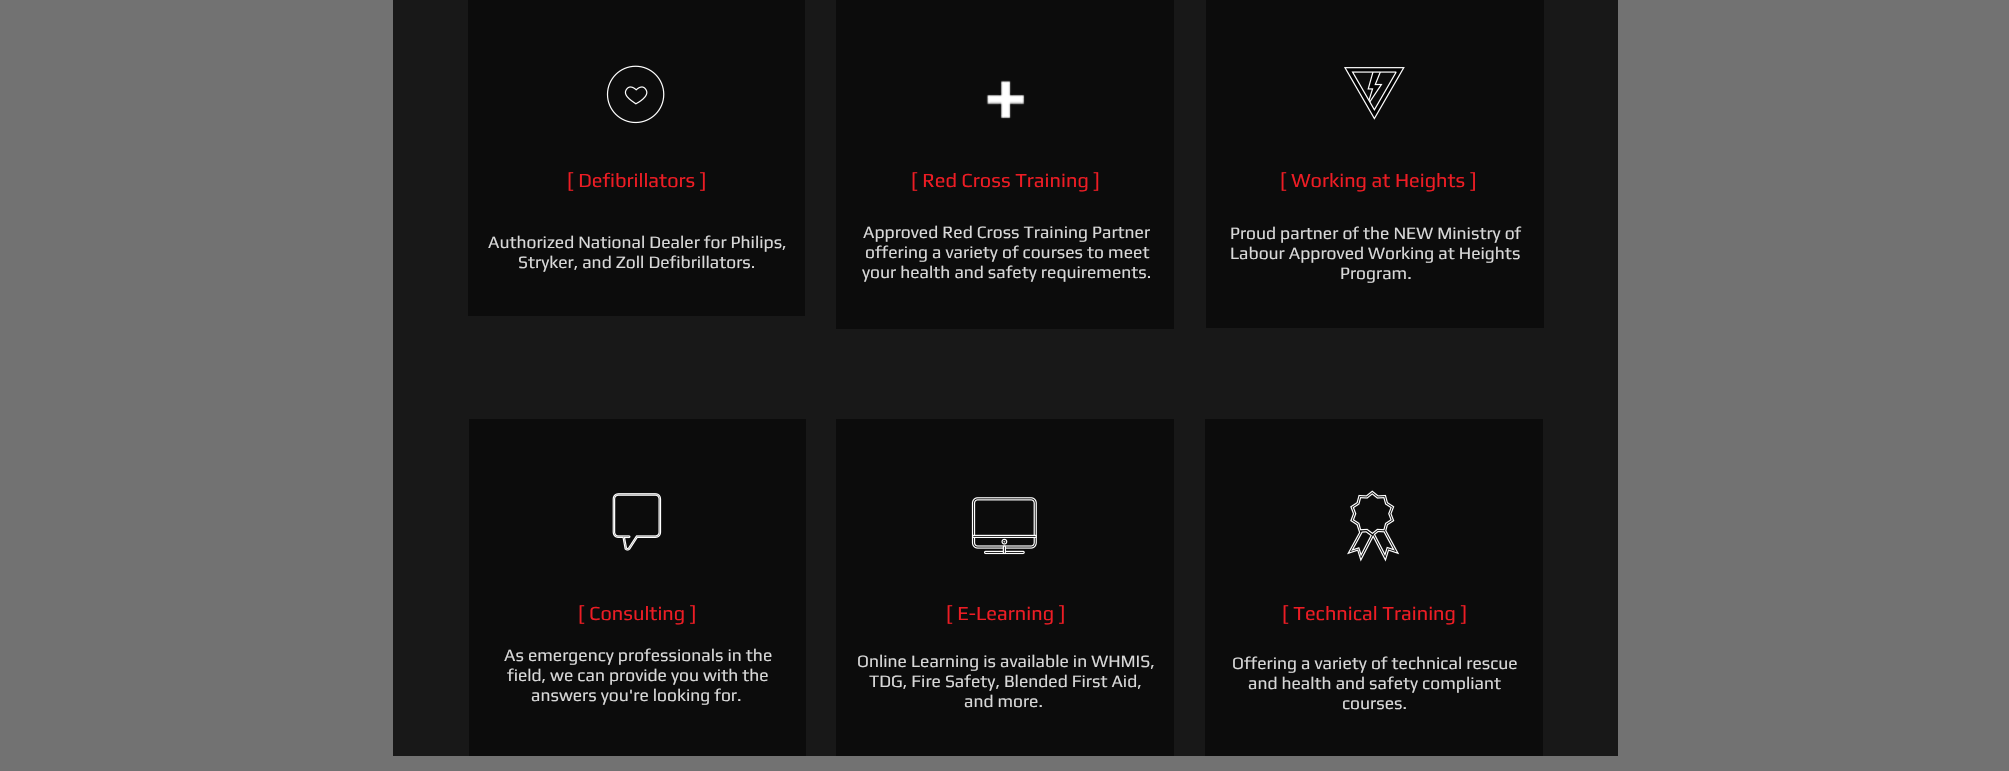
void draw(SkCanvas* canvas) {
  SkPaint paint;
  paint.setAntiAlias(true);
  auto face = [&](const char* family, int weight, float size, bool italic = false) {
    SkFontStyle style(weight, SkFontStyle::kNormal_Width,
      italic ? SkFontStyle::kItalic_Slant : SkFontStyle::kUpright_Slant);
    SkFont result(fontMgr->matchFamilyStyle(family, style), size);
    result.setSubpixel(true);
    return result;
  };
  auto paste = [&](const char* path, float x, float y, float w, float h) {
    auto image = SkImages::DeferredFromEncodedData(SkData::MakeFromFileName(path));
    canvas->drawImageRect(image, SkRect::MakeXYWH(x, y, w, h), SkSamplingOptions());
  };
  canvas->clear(0xff727272);
  paint.setColor(0xff181818);
  canvas->drawRect(SkRect::MakeXYWH(393, 0, 1225, 756), paint);
  paint.setColor(0xff0c0c0c);
  canvas->drawRect(SkRect::MakeXYWH(468, 0, 337, 316), paint);
  paste("img/1.png", 606, 65, 59, 59);
  canvas->drawRect(SkRect::MakeXYWH(836, 0, 338, 329), paint);
  paste("img/2.png", 986, 80, 39, 39);
  canvas->drawRect(SkRect::MakeXYWH(1206, 0, 338, 328), paint);
  paste("img/3.png", 1344, 67, 61, 53);
  canvas->drawRect(SkRect::MakeXYWH(469, 419, 337, 337), paint);
  paste("img/4.png", 612, 493, 50, 58);
  canvas->drawRect(SkRect::MakeXYWH(836, 419, 338, 337), paint);
  paste("img/5.png", 971, 497, 66, 58);
  canvas->drawRect(SkRect::MakeXYWH(1205, 419, 338, 337), paint);
  paste("img/6.png", 1347, 490, 53, 72);
  auto f0 = face("Play", 400, 20);
  paint.setColor(0xffed1c24);
  canvas->drawString("[ Defibrillators ]", 567, 187, f0, paint);
  auto f1 = face("Play", 400, 17.5f);
  paint.setColor(0xffd8d8d8);
  canvas->drawString("Authorized National Dealer for Philips,", 488, 248, f1, paint);
  canvas->drawString("Stryker, and Zoll Defibrillators.", 518, 268, f1, paint);
  paint.setColor(0xffed1c24);
  canvas->drawString("[ Red Cross Training ]", 911, 187, f0, paint);
  paint.setColor(0xffd8d8d8);
  {
    const struct { const char* s; float x, y; } items[] = {
      {"Approved Red Cross Training Partner", 863, 238},
      {"offering a variety of courses to meet", 865, 258},
      {"your health and safety requirements.", 862, 278},
    };
    for (auto [s, x, y] : items) {
      canvas->drawString(s, x, y, f1, paint);
    }
  }
  paint.setColor(0xffed1c24);
  canvas->drawString("[ Working at Heights ]", 1280, 187, f0, paint);
  paint.setColor(0xffd8d8d8);
  {
    const struct { const char* s; float x, y; } items[] = {
      {"Proud partner of the NEW Ministry of", 1230, 239},
      {"Labour Approved Working at Heights", 1230, 259},
      {"Program.", 1340, 279},
    };
    for (auto [s, x, y] : items) {
      canvas->drawString(s, x, y, f1, paint);
    }
  }
  paint.setColor(0xffed1c24);
  canvas->drawString("[ Consulting ]", 578, 620, f0, paint);
  paint.setColor(0xffd8d8d8);
  {
    const struct { const char* s; float x, y; } items[] = {
      {"As emergency professionals in the", 504, 661},
      {"field, we can provide you with the", 507, 681},
      {"answers you're looking for.", 531, 701},
    };
    for (auto [s, x, y] : items) {
      canvas->drawString(s, x, y, f1, paint);
    }
  }
  paint.setColor(0xffed1c24);
  canvas->drawString("[ E-Learning ]", 946, 620, f0, paint);
  paint.setColor(0xffd8d8d8);
  {
    const struct { const char* s; float x, y; } items[] = {
      {"Online Learning is available in WHMIS,", 857, 667},
      {"TDG, Fire Safety, Blended First Aid,", 869, 687},
      {"and more.", 964, 707},
    };
    for (auto [s, x, y] : items) {
      canvas->drawString(s, x, y, f1, paint);
    }
  }
  paint.setColor(0xffed1c24);
  canvas->drawString("[ Technical Training ]", 1282, 620, f0, paint);
  paint.setColor(0xffd8d8d8);
  {
    const struct { const char* s; float x, y; } items[] = {
      {"Offering a variety of technical rescue", 1232, 669},
      {"and health and safety compliant", 1248, 689},
      {"courses.", 1342, 709},
    };
    for (auto [s, x, y] : items) {
      canvas->drawString(s, x, y, f1, paint);
    }
  }
}
